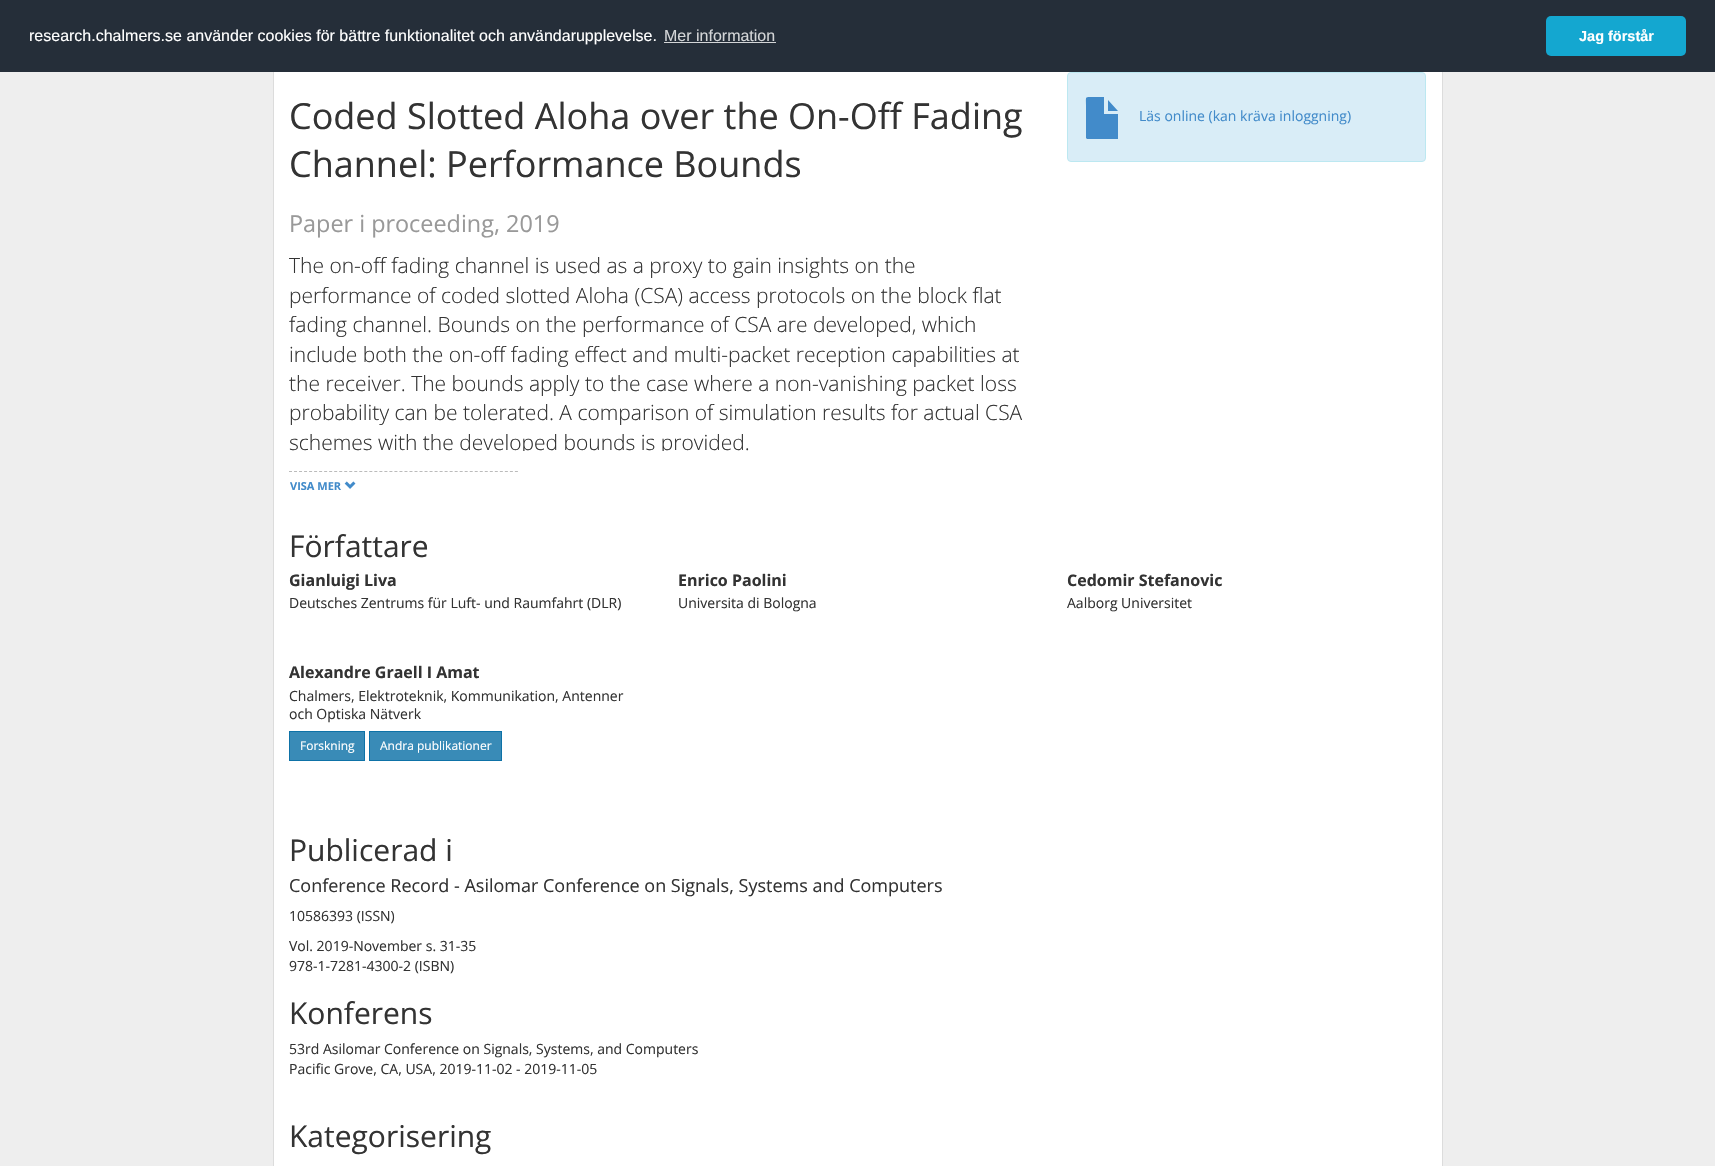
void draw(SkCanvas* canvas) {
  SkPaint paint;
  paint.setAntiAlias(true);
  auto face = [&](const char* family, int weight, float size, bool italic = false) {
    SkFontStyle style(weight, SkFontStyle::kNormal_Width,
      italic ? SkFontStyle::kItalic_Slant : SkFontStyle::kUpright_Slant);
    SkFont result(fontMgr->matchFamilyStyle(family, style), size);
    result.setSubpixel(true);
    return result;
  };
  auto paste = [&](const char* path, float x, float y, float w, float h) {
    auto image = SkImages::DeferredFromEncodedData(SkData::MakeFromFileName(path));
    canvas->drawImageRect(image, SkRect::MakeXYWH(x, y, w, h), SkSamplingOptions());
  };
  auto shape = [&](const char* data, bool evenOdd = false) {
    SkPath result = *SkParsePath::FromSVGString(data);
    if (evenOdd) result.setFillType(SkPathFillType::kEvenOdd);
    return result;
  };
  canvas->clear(0xffeeeeee);
  paint.setColor(0xff252e39);
  canvas->drawRect(SkRect::MakeXYWH(0, 0, 1715, 72), paint);
  paint.setColor(0xffd3d5d7);
  canvas->drawRect(SkRect::MakeXYWH(664, 42, 112, 1), paint);
  paint.setColor(0xff14a7d0);
  canvas->drawRoundRect(SkRect::MakeXYWH(1546, 16, 140, 40), 5, 5, paint);
  {
    const struct { float x, y, w, h; SkColor color; } items[] = {
      {274, 72, 1168, 1094, 0xffffffff},
      {1442, 72, 1, 1094, 0xffdcdcdc},
      {273, 72, 1, 1094, 0xffdcdcdc},
    };
    for (auto [x, y, w, h, color] : items) {
      paint.setColor(color);
      canvas->drawRect(SkRect::MakeXYWH(x, y, w, h), paint);
    }
  }
  paint.setStroke(true);
  paint.setStrokeWidth(1);
  paint.setColor(0xffbbbbbb);
  paint.setPathEffect(SkDashPathEffect::Make({{3, 2.02f}}, 0));
  canvas->drawPath(shape("M289 471.5H518"), paint);
  paint.setPathEffect(nullptr);
  paste("img/1.png", 344, 481, 12, 8);
  paint.setStroke(false);
  paint.setColor(0xffd9edf7);
  canvas->drawRoundRect(SkRect::MakeXYWH(1067.5f, 72.5f, 358, 89), 3.5f, 3.5f, paint);
  paint.setStroke(true);
  paint.setColor(0xffbce8f1);
  canvas->drawRoundRect(SkRect::MakeXYWH(1067.5f, 72.5f, 358, 89), 3.5f, 3.5f, paint);
  paint.setStroke(false);
  paint.setColor(0xff428bca);
  canvas->drawPath(shape("M1086 138V105C1086 97 1085 97 1090 97H1104V114H1118V139H1117H1087ZM1108 111V100L1118 111Z"), paint);
  paint.setColor(0xff398bb7);
  canvas->drawRect(SkRect::MakeXYWH(289.5f, 731.5f, 75, 29), paint);
  paint.setStroke(true);
  paint.setColor(0xff0e72a7);
  canvas->drawRect(SkRect::MakeXYWH(289.5f, 731.5f, 75, 29), paint);
  paint.setStroke(false);
  paint.setColor(0xff398bb7);
  canvas->drawRect(SkRect::MakeXYWH(369.5f, 731.5f, 132, 29), paint);
  paint.setStroke(true);
  paint.setColor(0xff0e72a7);
  canvas->drawRect(SkRect::MakeXYWH(369.5f, 731.5f, 132, 29), paint);
  auto f0 = face("Liberation Sans", 400, 16);
  paint.setStroke(false);
  paint.setColor(0xffffffff);
  canvas->drawString("research.chalmers.se använder cookies för bättre funktionalitet och användarupplevelse.", 29, 41, f0, paint);
  paint.setColor(0xffd3d5d7);
  canvas->drawString("Mer information", 664, 41, f0, paint);
  auto f1 = face("Liberation Sans", 700, 14.5f);
  paint.setColor(0xffffffff);
  canvas->drawString("Jag förstår", 1579, 41, f1, paint);
  auto f2 = face("Open Sans", 400, 36);
  paint.setColor(0xff333333);
  canvas->drawString("Coded Slotted Aloha over the On-Off Fading", 289, 129, f2, paint);
  canvas->drawString("Channel: Performance Bounds", 289, 177, f2, paint);
  auto f3 = face("Open Sans", 400, 23.4f);
  paint.setColor(0xff999999);
  canvas->drawString("Paper i proceeding, 2019", 289, 232, f3, paint);
  auto f4 = face("Open Sans", 300, 21);
  paint.setColor(0xff333333);
  {
    const struct { const char* s; float x, y; } items[] = {
      {"The on-off fading channel is used as a proxy to gain insights on the", 289, 273},
      {"performance of coded slotted Aloha (CSA) access protocols on the block flat", 289, 303},
      {"fading channel. Bounds on the performance of CSA are developed, which", 289, 332},
      {"include both the on-off fading effect and multi-packet reception capabilities at", 289, 362},
      {"the receiver. The bounds apply to the case where a non-vanishing packet loss", 289, 391},
      {"probability can be tolerated. A comparison of simulation results for actual CSA", 289, 420},
    };
    for (auto [s, x, y] : items) {
      canvas->drawString(s, x, y, f4, paint);
    }
  }
  canvas->save();
  canvas->clipRect(SkRect::MakeXYWH(289, 251, 748, 200));
  canvas->drawString("schemes with the developed bounds is provided.", 289, 450, f4, paint);
  canvas->restore();
  auto f5 = face("Open Sans", 700, 11);
  paint.setColor(0xff428bca);
  canvas->drawString("VISA MER", 290, 490, f5, paint);
  auto f6 = face("Open Sans", 400, 14);
  canvas->drawString("Läs online (kan kräva inloggning)", 1139, 121, f6, paint);
  auto f7 = face("Open Sans", 400, 30);
  paint.setColor(0xff333333);
  canvas->drawString("Författare", 289, 557, f7, paint);
  auto f8 = face("Open Sans", 700, 16);
  canvas->drawString("Gianluigi Liva", 289, 586, f8, paint);
  canvas->drawString("Deutsches Zentrums für Luft- und Raumfahrt (DLR)", 289, 608, f6, paint);
  canvas->drawString("Enrico Paolini", 678, 586, f8, paint);
  canvas->drawString("Universita di Bologna", 678, 608, f6, paint);
  canvas->drawString("Cedomir Stefanovic", 1067, 586, f8, paint);
  canvas->drawString("Aalborg Universitet", 1067, 608, f6, paint);
  canvas->drawString("Alexandre Graell I Amat", 289, 678, f8, paint);
  canvas->drawString("Chalmers, Elektroteknik, Kommunikation, Antenner", 289, 701, f6, paint);
  canvas->drawString("och Optiska Nätverk", 289, 719, f6, paint);
  auto f9 = face("Open Sans", 400, 12);
  paint.setColor(0xffffffff);
  canvas->drawString("Forskning", 300, 750, f9, paint);
  canvas->drawString("Andra publikationer", 380, 750, f9, paint);
  paint.setColor(0xff333333);
  canvas->drawString("Publicerad i", 289, 861, f7, paint);
  auto f10 = face("Open Sans", 400, 18);
  canvas->drawString("Conference Record - Asilomar Conference on Signals, Systems and Computers", 289, 892, f10, paint);
  {
    const struct { const char* s; float x, y; } items[] = {
      {"10586393 (ISSN)", 289, 921},
      {"Vol. 2019-November s. 31-35", 289, 951},
      {"978-1-7281-4300-2 (ISBN)", 289, 971},
    };
    for (auto [s, x, y] : items) {
      canvas->drawString(s, x, y, f6, paint);
    }
  }
  canvas->drawString("Konferens", 289, 1024, f7, paint);
  canvas->drawString("53rd Asilomar Conference on Signals, Systems, and Computers", 289, 1054, f6, paint);
  canvas->drawString("Pacific Grove, CA, USA, 2019-11-02 - 2019-11-05", 289, 1074, f6, paint);
  canvas->drawString("Kategorisering", 289, 1147, f7, paint);
}
